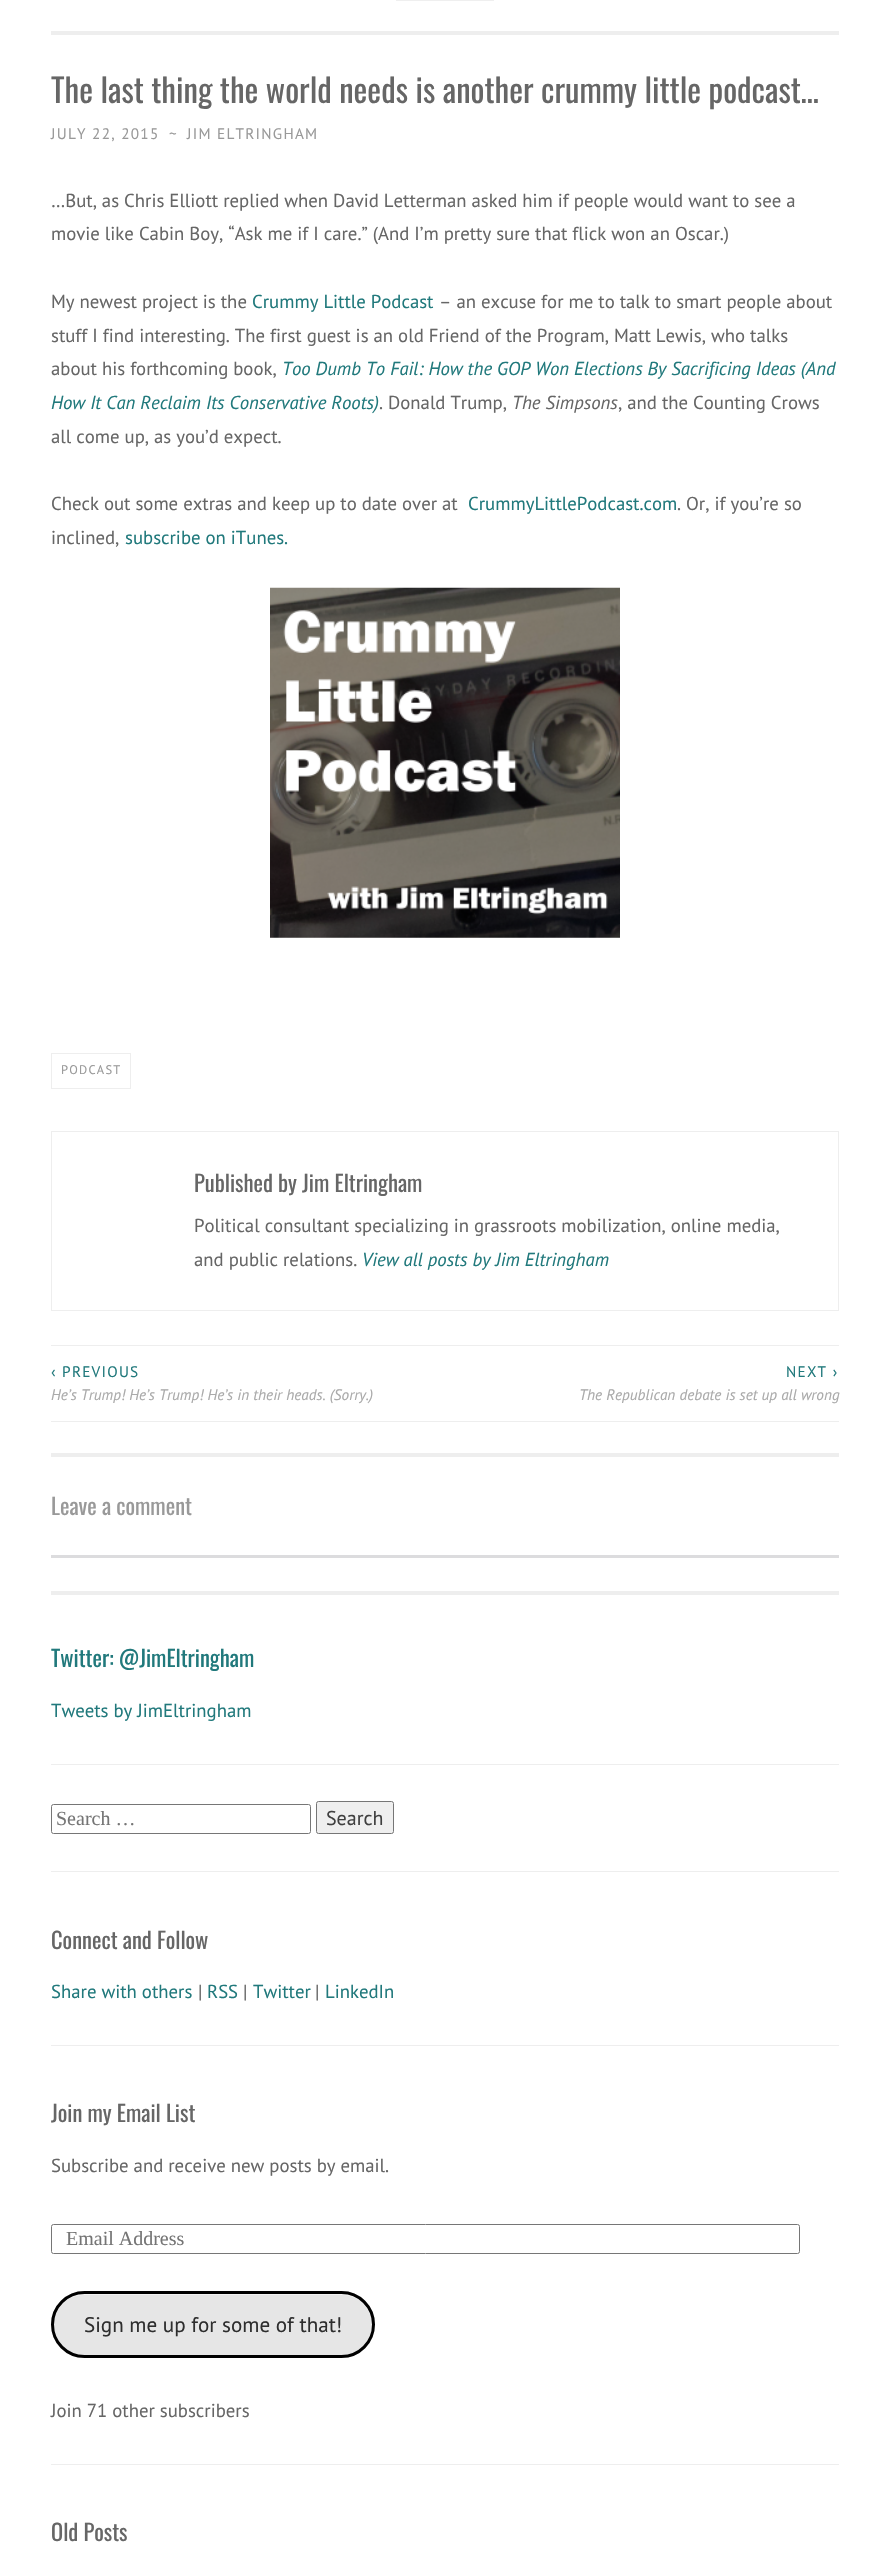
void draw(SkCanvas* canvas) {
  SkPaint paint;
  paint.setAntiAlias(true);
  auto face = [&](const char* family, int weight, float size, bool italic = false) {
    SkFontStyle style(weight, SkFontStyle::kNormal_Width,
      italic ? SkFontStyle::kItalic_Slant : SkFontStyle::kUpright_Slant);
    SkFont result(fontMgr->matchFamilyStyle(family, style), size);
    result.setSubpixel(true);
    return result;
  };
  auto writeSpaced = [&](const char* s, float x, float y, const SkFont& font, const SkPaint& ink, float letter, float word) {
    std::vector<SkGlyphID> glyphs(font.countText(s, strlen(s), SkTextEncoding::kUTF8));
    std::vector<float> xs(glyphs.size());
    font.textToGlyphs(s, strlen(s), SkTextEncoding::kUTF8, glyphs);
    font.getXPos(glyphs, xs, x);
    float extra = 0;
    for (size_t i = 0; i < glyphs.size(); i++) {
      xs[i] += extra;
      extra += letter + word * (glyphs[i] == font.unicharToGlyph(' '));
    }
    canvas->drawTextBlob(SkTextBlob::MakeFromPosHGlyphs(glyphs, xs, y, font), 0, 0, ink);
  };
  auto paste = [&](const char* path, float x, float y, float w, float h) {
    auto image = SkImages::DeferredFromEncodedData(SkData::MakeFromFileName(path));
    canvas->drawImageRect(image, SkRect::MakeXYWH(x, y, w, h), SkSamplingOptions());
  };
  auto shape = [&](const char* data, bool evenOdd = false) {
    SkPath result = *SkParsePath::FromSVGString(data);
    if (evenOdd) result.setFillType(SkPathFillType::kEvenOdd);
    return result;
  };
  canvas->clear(0xffffffff);
  paint.setColor(0xffeeeeee);
  canvas->drawRect(SkRect::MakeXYWH(51, 31, 788, 4), paint);
  paint.setColor(0xffefefef);
  canvas->drawRect(SkRect::MakeXYWH(396, 0, 98, 1), paint);
  paste("img/1.png", 270, 587, 350, 351);
  paint.setStroke(true);
  paint.setStrokeWidth(1);
  paint.setColor(0xffeeeeee);
  canvas->drawRect(SkRect::MakeXYWH(51.5f, 1053.5f, 79, 35), paint);
  canvas->drawRect(SkRect::MakeXYWH(51.5f, 1131.5f, 787, 179), paint);
  paint.setStroke(false);
  {
    const struct { float x, y, w, h; SkColor color; } items[] = {
      {51, 1345, 788, 1, 0xffeeeeee},
      {51, 1421, 788, 1, 0xffeeeeee},
      {51, 1453, 788, 4, 0xffeeeeee},
      {51, 1555, 788, 3, 0xffdcdcde},
      {51, 1591, 788, 4, 0xffeeeeee},
      {51, 1764, 788, 1, 0xffeeeeee},
      {51, 1871, 788, 1, 0xffeeeeee},
    };
    for (auto [x, y, w, h, color] : items) {
      paint.setColor(color);
      canvas->drawRect(SkRect::MakeXYWH(x, y, w, h), paint);
    }
  }
  paint.setStroke(true);
  paint.setColor(0xff767676);
  canvas->drawRoundRect(SkRect::MakeXYWH(51.5f, 1804.5f, 259, 29), 2, 2, paint);
  paint.setStroke(false);
  paint.setColor(0xffefefef);
  canvas->drawRoundRect(SkRect::MakeXYWH(316.5f, 1801.5f, 77, 32), 2, 2, paint);
  paint.setStroke(true);
  paint.setColor(0xff767676);
  canvas->drawRoundRect(SkRect::MakeXYWH(316.5f, 1801.5f, 77, 32), 2, 2, paint);
  paint.setStroke(false);
  paint.setColor(0xffeeeeee);
  canvas->drawRect(SkRect::MakeXYWH(51, 2045, 788, 1), paint);
  canvas->drawRect(SkRect::MakeXYWH(51, 2464, 788, 1), paint);
  paint.setStroke(true);
  paint.setColor(0xff767676);
  canvas->drawRoundRect(SkRect::MakeXYWH(51.5f, 2224.5f, 748, 29), 2, 2, paint);
  paint.setStroke(false);
  paint.setColor(0xffe6e6e6);
  canvas->drawRoundRect(SkRect::MakeXYWH(51, 2291, 324, 67), 33.5f, 33.5f, paint);
  paint.setColor(0xfff3f3f3);
  canvas->drawPath(shape("M84 2295H342C359 2295 372 2309 372 2326C372 2331 371 2336 368 2341C371 2336 373 2330 373 2324C373 2308 359 2294 342 2294H84C68 2294 54 2308 54 2324V2325C54 2309 67 2295 84 2295Z"), paint);
  paint.setStroke(true);
  paint.setStrokeWidth(3);
  paint.setColor(0xff000000);
  canvas->drawRoundRect(SkRect::MakeXYWH(52.5f, 2292.5f, 321, 64), 32, 32, paint);
  auto f0 = face("Oswald", 400, 32.8f);
  paint.setStroke(false);
  paint.setColor(0xff666666);
  canvas->drawString("The last thing the world needs is another crummy little podcast…", 51, 103, f0, paint);
  auto f1 = face("PT Sans", 400, 15.25f);
  paint.setColor(0xff999999);
  {
    const struct { const char* s; float x, y; } items[] = {
      {"JULY 22, 2015", 51, 139},
      {"~", 169, 139},
      {"JIM ELTRINGHAM", 187, 139},
    };
    for (auto [s, x, y] : items) {
      writeSpaced(s, x, y, f1, paint, 1.25f, 0);
    }
  }
  auto f2 = face("PT Sans", 400, 18.75f);
  paint.setColor(0xff666666);
  {
    const struct { const char* s; float x, y; } items[] = {
      {"…But, as Chris Elliott replied when David Letterman asked him if people would want to see a", 51, 207},
      {"movie like Cabin Boy, “Ask me if I care.” (And I’m pretty sure that flick won an Oscar.)", 51, 240},
      {"My newest project is the", 51, 308},
    };
    for (auto [s, x, y] : items) {
      canvas->drawString(s, x, y, f2, paint);
    }
  }
  paint.setColor(0xff21797c);
  canvas->drawString("Crummy Little Podcast", 252, 308, f2, paint);
  paint.setColor(0xff666666);
  {
    const struct { const char* s; float x, y; } items[] = {
      {"– an excuse for me to talk to smart people about", 439, 308},
      {"stuff I find interesting. The first guest is an old Friend of the Program, Matt Lewis, who talks", 51, 342},
      {"about his forthcoming book,", 51, 375},
    };
    for (auto [s, x, y] : items) {
      canvas->drawString(s, x, y, f2, paint);
    }
  }
  auto f3 = face("PT Sans", 400, 18.75f, true);
  paint.setColor(0xff21797c);
  canvas->drawString("Too Dumb To Fail: How the GOP Won Elections By Sacrificing Ideas (And", 282, 375, f3, paint);
  canvas->drawString("How It Can Reclaim Its Conservative Roots)", 51, 409, f3, paint);
  paint.setColor(0xff666666);
  canvas->drawString(". Donald Trump,", 379, 409, f2, paint);
  canvas->drawString("The Simpsons", 512, 409, f3, paint);
  {
    const struct { const char* s; float x, y; } items[] = {
      {", and the Counting Crows", 618, 409},
      {"all come up, as you’d expect.", 51, 443},
      {"Check out some extras and keep up to date over at", 51, 510},
    };
    for (auto [s, x, y] : items) {
      canvas->drawString(s, x, y, f2, paint);
    }
  }
  paint.setColor(0xff21797c);
  canvas->drawString("CrummyLittlePodcast.com", 468, 510, f2, paint);
  paint.setColor(0xff666666);
  canvas->drawString(". Or, if you’re so", 677, 510, f2, paint);
  canvas->drawString("inclined,", 51, 544, f2, paint);
  paint.setColor(0xff21797c);
  canvas->drawString("subscribe on iTunes.", 125, 544, f2, paint);
  auto f4 = face("PT Sans", 400, 12.5f);
  paint.setColor(0xff999999);
  writeSpaced("PODCAST", 61, 1074, f4, paint, 1.25f, 0);
  auto f5 = face("Oswald", 400, 22.5f);
  paint.setColor(0xff666666);
  canvas->drawString("Published by Jim Eltringham", 194, 1192, f5, paint);
  canvas->drawString("Political consultant specializing in grassroots mobilization, online media,", 194, 1232, f2, paint);
  canvas->drawString("and public relations.", 194, 1266, f2, paint);
  paint.setColor(0xff21797c);
  canvas->drawString("View all posts by Jim Eltringham", 362, 1266, f3, paint);
  writeSpaced("‹ PREVIOUS", 51, 1377, f1, paint, 1.25f, 0);
  auto f6 = face("PT Sans", 400, 15.25f, true);
  paint.setColor(0xffaaaaaa);
  canvas->drawString("He’s Trump! He’s Trump! He’s in their heads. (Sorry.)", 51, 1400, f6, paint);
  paint.setColor(0xff21797c);
  writeSpaced("NEXT ›", 786, 1377, f1, paint, 1.25f, 0);
  paint.setColor(0xffaaaaaa);
  canvas->drawString("The Republican debate is set up all wrong", 579, 1400, f6, paint);
  paint.setColor(0xff999999);
  canvas->drawString("Leave a comment", 51, 1515, f5, paint);
  paint.setColor(0xff21797c);
  canvas->drawString("Twitter: @JimEltringham", 51, 1667, f5, paint);
  canvas->drawString("Tweets by JimEltringham", 51, 1717, f2, paint);
  auto f7 = face("Liberation Serif", 400, 20);
  paint.setColor(0xff757575);
  canvas->drawString("Search …", 56, 1825, f7, paint);
  auto f8 = face("PT Sans", 400, 20);
  paint.setColor(0xff404040);
  canvas->drawString("Search", 326, 1825, f8, paint);
  paint.setColor(0xff666666);
  canvas->drawString("Connect and Follow", 51, 1949, f5, paint);
  paint.setColor(0xff21797c);
  canvas->drawString("Share with others", 51, 1998, f2, paint);
  paint.setColor(0xff666666);
  canvas->drawString("|", 198, 1998, f2, paint);
  paint.setColor(0xff21797c);
  canvas->drawString("RSS", 207, 1998, f2, paint);
  paint.setColor(0xff666666);
  canvas->drawString("|", 243, 1998, f2, paint);
  paint.setColor(0xff21797c);
  canvas->drawString("Twitter", 253, 1998, f2, paint);
  paint.setColor(0xff666666);
  canvas->drawString("|", 315, 1998, f2, paint);
  paint.setColor(0xff21797c);
  canvas->drawString("LinkedIn", 325, 1998, f2, paint);
  paint.setColor(0xff666666);
  canvas->drawString("Join my Email List", 51, 2122, f5, paint);
  canvas->drawString("Subscribe and receive new posts by email.", 51, 2172, f2, paint);
  paint.setColor(0xff757575);
  canvas->drawString("Email Address", 66, 2245, f7, paint);
  auto f9 = face("PT Sans", 400, 21.1f);
  paint.setColor(0xff2e2e2e);
  canvas->drawString("Sign me up for some of that!", 84, 2332, f9, paint);
  paint.setColor(0xff666666);
  canvas->drawString("Join 71 other subscribers", 51, 2417, f2, paint);
  canvas->drawString("Old Posts", 51, 2541, f5, paint);
}
